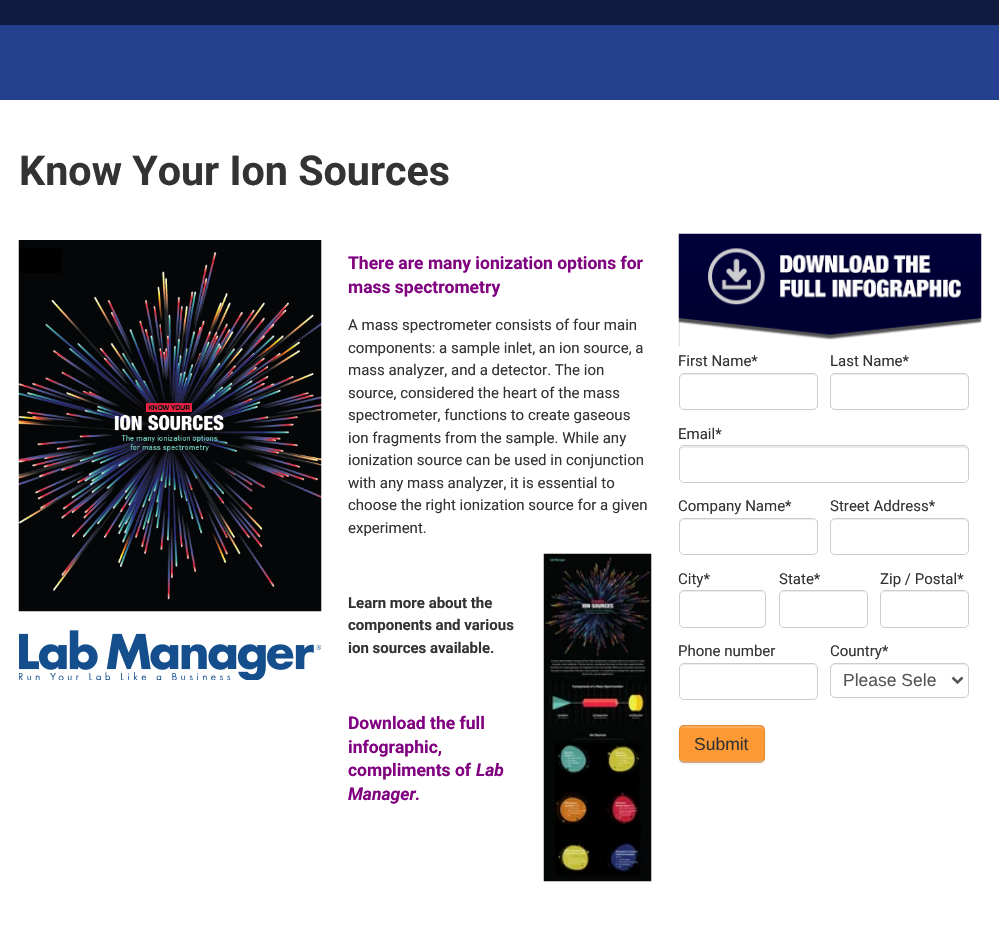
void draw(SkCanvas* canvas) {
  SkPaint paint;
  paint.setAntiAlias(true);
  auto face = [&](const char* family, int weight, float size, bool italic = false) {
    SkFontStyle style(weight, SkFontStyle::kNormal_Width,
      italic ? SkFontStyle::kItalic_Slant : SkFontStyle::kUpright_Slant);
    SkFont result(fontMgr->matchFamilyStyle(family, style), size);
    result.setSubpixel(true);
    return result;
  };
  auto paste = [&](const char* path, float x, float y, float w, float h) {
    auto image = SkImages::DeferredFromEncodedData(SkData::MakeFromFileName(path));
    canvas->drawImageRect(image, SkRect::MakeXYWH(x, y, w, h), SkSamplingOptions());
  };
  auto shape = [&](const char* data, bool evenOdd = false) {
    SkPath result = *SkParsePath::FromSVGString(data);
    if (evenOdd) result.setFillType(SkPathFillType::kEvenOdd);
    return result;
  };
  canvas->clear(0xffffffff);
  paint.setColor(0xff0f1b3f);
  canvas->drawRect(SkRect::MakeXYWH(0, 0, 999, 25), paint);
  paint.setColor(0xff25408f);
  canvas->drawRect(SkRect::MakeXYWH(0, 25, 999, 75), paint);
  paste("img/1.png", 18, 240, 304, 372);
  paste("img/2.png", 19, 630, 302, 50);
  paste("img/3.png", 543, 553, 109, 329);
  paste("img/4.png", 678, 233, 304, 114);
  paint.setColor(0xffececec);
  canvas->drawPath(shape("M684 375H812C815 375 816 377 816 379V378C816 376 814 374 812 374H684C682 374 680 376 680 378V379C680 377 682 375 684 375Z"), paint);
  paint.setStroke(true);
  paint.setStrokeWidth(1);
  paint.setColor(0xffcccccc);
  canvas->drawRoundRect(SkRect::MakeXYWH(679.5f, 373.5f, 138, 36), 4.5f, 4.5f, paint);
  paint.setStroke(false);
  paint.setColor(0xffececec);
  canvas->drawPath(shape("M835 375H964C966 375 968 377 968 379V378C968 376 966 374 964 374H835C833 374 831 376 831 378V379C831 377 833 375 835 375Z"), paint);
  paint.setStroke(true);
  paint.setColor(0xffcccccc);
  canvas->drawRoundRect(SkRect::MakeXYWH(830.5f, 373.5f, 138, 36), 4.5f, 4.5f, paint);
  paint.setStroke(false);
  paint.setColor(0xffececec);
  canvas->drawPath(shape("M684 448H964C966 448 968 449 968 451C968 448 967 446 964 446H684C681 446 680 448 680 451C680 449 682 448 684 448Z"), paint);
  paint.setStroke(true);
  paint.setColor(0xffcccccc);
  canvas->drawRoundRect(SkRect::MakeXYWH(679.5f, 445.5f, 289, 37), 4.5f, 4.5f, paint);
  paint.setStroke(false);
  paint.setColor(0xffececec);
  canvas->drawPath(shape("M684 520H812C815 520 816 522 816 524V523C816 521 814 519 812 519H684C682 519 680 521 680 523V524C680 522 682 520 684 520Z"), paint);
  paint.setStroke(true);
  paint.setColor(0xffcccccc);
  canvas->drawRoundRect(SkRect::MakeXYWH(679.5f, 518.5f, 138, 36), 4.5f, 4.5f, paint);
  paint.setStroke(false);
  paint.setColor(0xffececec);
  canvas->drawPath(shape("M835 520H964C966 520 968 522 968 524V523C968 521 966 519 964 519H835C833 519 831 521 831 523V524C831 522 833 520 835 520Z"), paint);
  paint.setStroke(true);
  paint.setColor(0xffcccccc);
  canvas->drawRoundRect(SkRect::MakeXYWH(830.5f, 518.5f, 138, 36), 4.5f, 4.5f, paint);
  paint.setStroke(false);
  paint.setColor(0xffececec);
  canvas->drawPath(shape("M684 592H761C763 592 765 594 765 596C765 588 753 591 748 591H697C692 591 680 588 680 596C680 594 682 592 684 592Z"), paint);
  paint.setStroke(true);
  paint.setColor(0xffcccccc);
  canvas->drawRoundRect(SkRect::MakeXYWH(679.5f, 590.5f, 86, 37), 4.5f, 4.5f, paint);
  paint.setStroke(false);
  paint.setColor(0xffececec);
  canvas->drawPath(shape("M784 592H862C865 592 866 594 866 596C866 588 854 591 849 591H797C792 591 780 588 780 596C780 594 782 592 784 592Z"), paint);
  paint.setStroke(true);
  paint.setColor(0xffcccccc);
  canvas->drawRoundRect(SkRect::MakeXYWH(779.5f, 590.5f, 88, 37), 4.5f, 4.5f, paint);
  paint.setStroke(false);
  paint.setColor(0xffececec);
  canvas->drawPath(shape("M885 592H964C966 592 968 594 968 596C968 588 956 591 951 591H898C893 591 881 588 881 596C881 594 883 592 885 592Z"), paint);
  paint.setStroke(true);
  paint.setColor(0xffcccccc);
  canvas->drawRoundRect(SkRect::MakeXYWH(880.5f, 590.5f, 88, 37), 4.5f, 4.5f, paint);
  paint.setStroke(false);
  paint.setColor(0xffececec);
  canvas->drawPath(shape("M684 665H812C815 665 816 667 816 669V668C816 666 814 664 812 664H684C682 664 680 666 680 668V669C680 667 682 665 684 665Z"), paint);
  paint.setStroke(true);
  paint.setColor(0xffcccccc);
  canvas->drawRoundRect(SkRect::MakeXYWH(679.5f, 663.5f, 138, 36), 4.5f, 4.5f, paint);
  paint.setStroke(false);
  paint.setColor(0xffececec);
  canvas->drawPath(shape("M835 665H964C966 665 968 667 968 669V668C968 666 966 664 964 664H835C833 664 831 666 831 668V669C831 667 833 665 835 665Z"), paint);
  paint.setStroke(true);
  paint.setColor(0xffcccccc);
  canvas->drawRoundRect(SkRect::MakeXYWH(830.5f, 663.5f, 138, 34), 4.5f, 4.5f, paint);
  paint.setStrokeWidth(2.5f);
  paint.setColor(0xff555555);
  canvas->drawPath(shape("M952.5 677.5L957.5 682.5L962.5 677.5"), paint);
  paint.setStroke(false);
  paint.setColor(0x0d000000);
  paint.setMaskFilter(SkMaskFilter::MakeBlur(kNormal_SkBlurStyle, 1));
  canvas->drawRoundRect(SkRect::MakeXYWH(679, 726, 86, 38), 5, 5, paint);
  paint.setMaskFilter(nullptr);
  paint.setColor(0xffff9933);
  canvas->drawRoundRect(SkRect::MakeXYWH(679, 725, 86, 38), 5, 5, paint);
  paint.setColor(0xffffad5c);
  canvas->drawPath(shape("M684 728H760C762 728 764 729 764 731C764 723 752 726 747 726H697C692 726 680 723 680 731C680 729 682 728 684 728Z"), paint);
  paint.setStroke(true);
  paint.setStrokeWidth(1.2f);
  paint.setColor(0xffb3b3b3);
  canvas->drawPath(shape("M763 760.5L760.5 762H683.5L680.5 760.5"), paint);
  paint.setColor(0x1a000000);
  canvas->drawPath(shape("M680.5 760.5C678.5 758.5 679.5 755.5 679.5 753V744C679.5 723.5 676 725.5 696.5 725.5H747.5C767.5 725.5 764.5 723.5 764.5 744V753C764.5 755.5 765 758.5 763 760.5"), paint);
  auto f0 = face("Roboto", 700, 41.25f);
  paint.setStroke(false);
  paint.setColor(0xff333333);
  canvas->drawString("Know Your Ion Sources", 19, 185, f0, paint);
  auto f1 = face("Roboto", 700, 17.5f);
  paint.setColor(0xff800080);
  canvas->drawString("There are many ionization options for", 348, 269, f1, paint);
  canvas->drawString("mass spectrometry", 348, 293, f1, paint);
  auto f2 = face("Roboto", 400, 15);
  paint.setColor(0xff333333);
  {
    const struct { const char* s; float x, y; } items[] = {
      {"A mass spectrometer consists of four main", 348, 330},
      {"components: a sample inlet, an ion source, a", 348, 353},
      {"mass analyzer, and a detector. The ion", 348, 375},
      {"source, considered the heart of the mass", 348, 398},
      {"spectrometer, functions to create gaseous", 348, 420},
      {"ion fragments from the sample. While any", 348, 443},
      {"ionization source can be used in conjunction", 348, 465},
      {"with any mass analyzer, it is essential to", 348, 488},
      {"choose the right ionization source for a given", 348, 510},
      {"experiment.", 348, 533},
    };
    for (auto [s, x, y] : items) {
      canvas->drawString(s, x, y, f2, paint);
    }
  }
  auto f3 = face("Roboto", 700, 15);
  {
    const struct { const char* s; float x, y; } items[] = {
      {"Learn more about the", 348, 608},
      {"components and various", 348, 630},
      {"ion sources available.", 348, 653},
    };
    for (auto [s, x, y] : items) {
      canvas->drawString(s, x, y, f3, paint);
    }
  }
  paint.setColor(0xff800080);
  {
    const struct { const char* s; float x, y; } items[] = {
      {"Download the full", 348, 729},
      {"infographic,", 348, 753},
      {"compliments of", 348, 776},
    };
    for (auto [s, x, y] : items) {
      canvas->drawString(s, x, y, f1, paint);
    }
  }
  auto f4 = face("Roboto", 700, 17.5f, true);
  canvas->drawString("Lab", 476, 776, f4, paint);
  canvas->drawString("Manager.", 348, 800, f4, paint);
  paint.setColor(0xff333333);
  {
    const struct { const char* s; float x, y; } items[] = {
      {"First Name*", 678, 366},
      {"Last Name*", 830, 366},
      {"Email*", 678, 439},
      {"Company Name*", 678, 511},
      {"Street Address*", 830, 511},
      {"City*", 678, 584},
      {"State*", 779, 584},
      {"Zip / Postal*", 880, 584},
      {"Phone number", 678, 656},
      {"Country*", 830, 656},
    };
    for (auto [s, x, y] : items) {
      canvas->drawString(s, x, y, f2, paint);
    }
  }
  auto f5 = face("Liberation Sans", 400, 17.5f);
  paint.setColor(0xff555555);
  canvas->drawString("Please Sele", 843, 686, f5, paint);
  paint.setColor(0xff333333);
  canvas->drawString("Submit", 694, 750, f5, paint);
}
